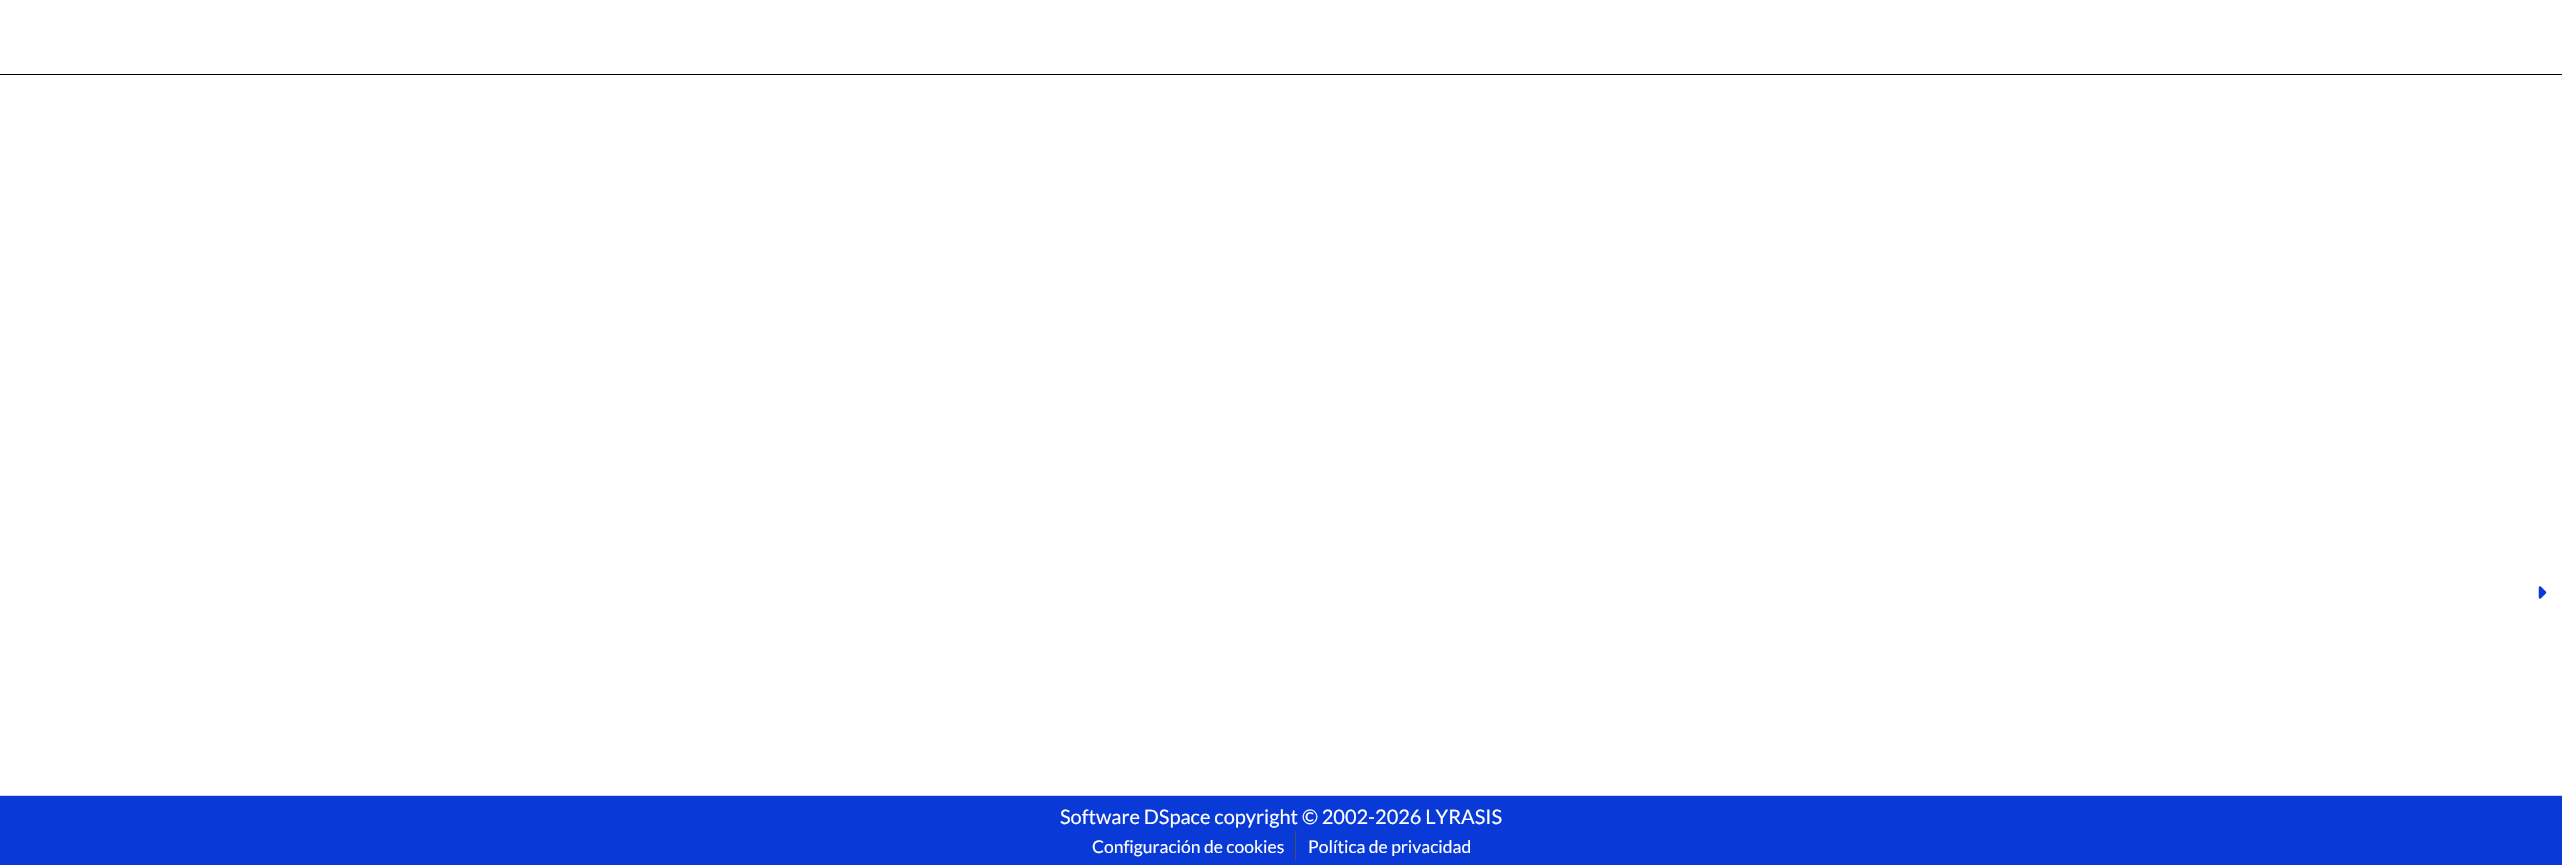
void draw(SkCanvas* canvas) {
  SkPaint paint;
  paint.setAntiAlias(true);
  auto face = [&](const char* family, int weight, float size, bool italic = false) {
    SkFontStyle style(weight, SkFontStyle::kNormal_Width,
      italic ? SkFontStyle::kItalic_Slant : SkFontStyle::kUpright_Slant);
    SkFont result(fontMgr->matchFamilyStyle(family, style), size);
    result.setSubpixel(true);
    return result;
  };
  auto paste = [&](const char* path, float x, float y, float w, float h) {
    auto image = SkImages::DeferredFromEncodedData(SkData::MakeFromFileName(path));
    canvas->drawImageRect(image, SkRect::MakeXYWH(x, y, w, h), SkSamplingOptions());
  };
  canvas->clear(0xffffffff);
  paste("img/1.png", 2538, 586, 9, 13);
  {
    const struct { float x, y, w, h; SkColor color; } items[] = {
      {0, 74, 2562, 1, 0xff000000},
      {0, 796, 2562, 69, 0xff093ad8},
      {0, 795, 2562, 1, 0xffced4da},
      {1295, 831, 1, 29, 0xff495057},
    };
    for (auto [x, y, w, h, color] : items) {
      paint.setColor(color);
      canvas->drawRect(SkRect::MakeXYWH(x, y, w, h), paint);
    }
  }
  auto f0 = face("Lato", 400, 20);
  paint.setColor(0xffffffff);
  canvas->drawString("Software DSpace copyright © 2002-2026 LYRASIS", 1060, 824, f0, paint);
  auto f1 = face("Lato", 400, 17.5f);
  canvas->drawString("Configuración de cookies", 1092, 853, f1, paint);
  canvas->drawString("Política de privacidad", 1308, 853, f1, paint);
}
